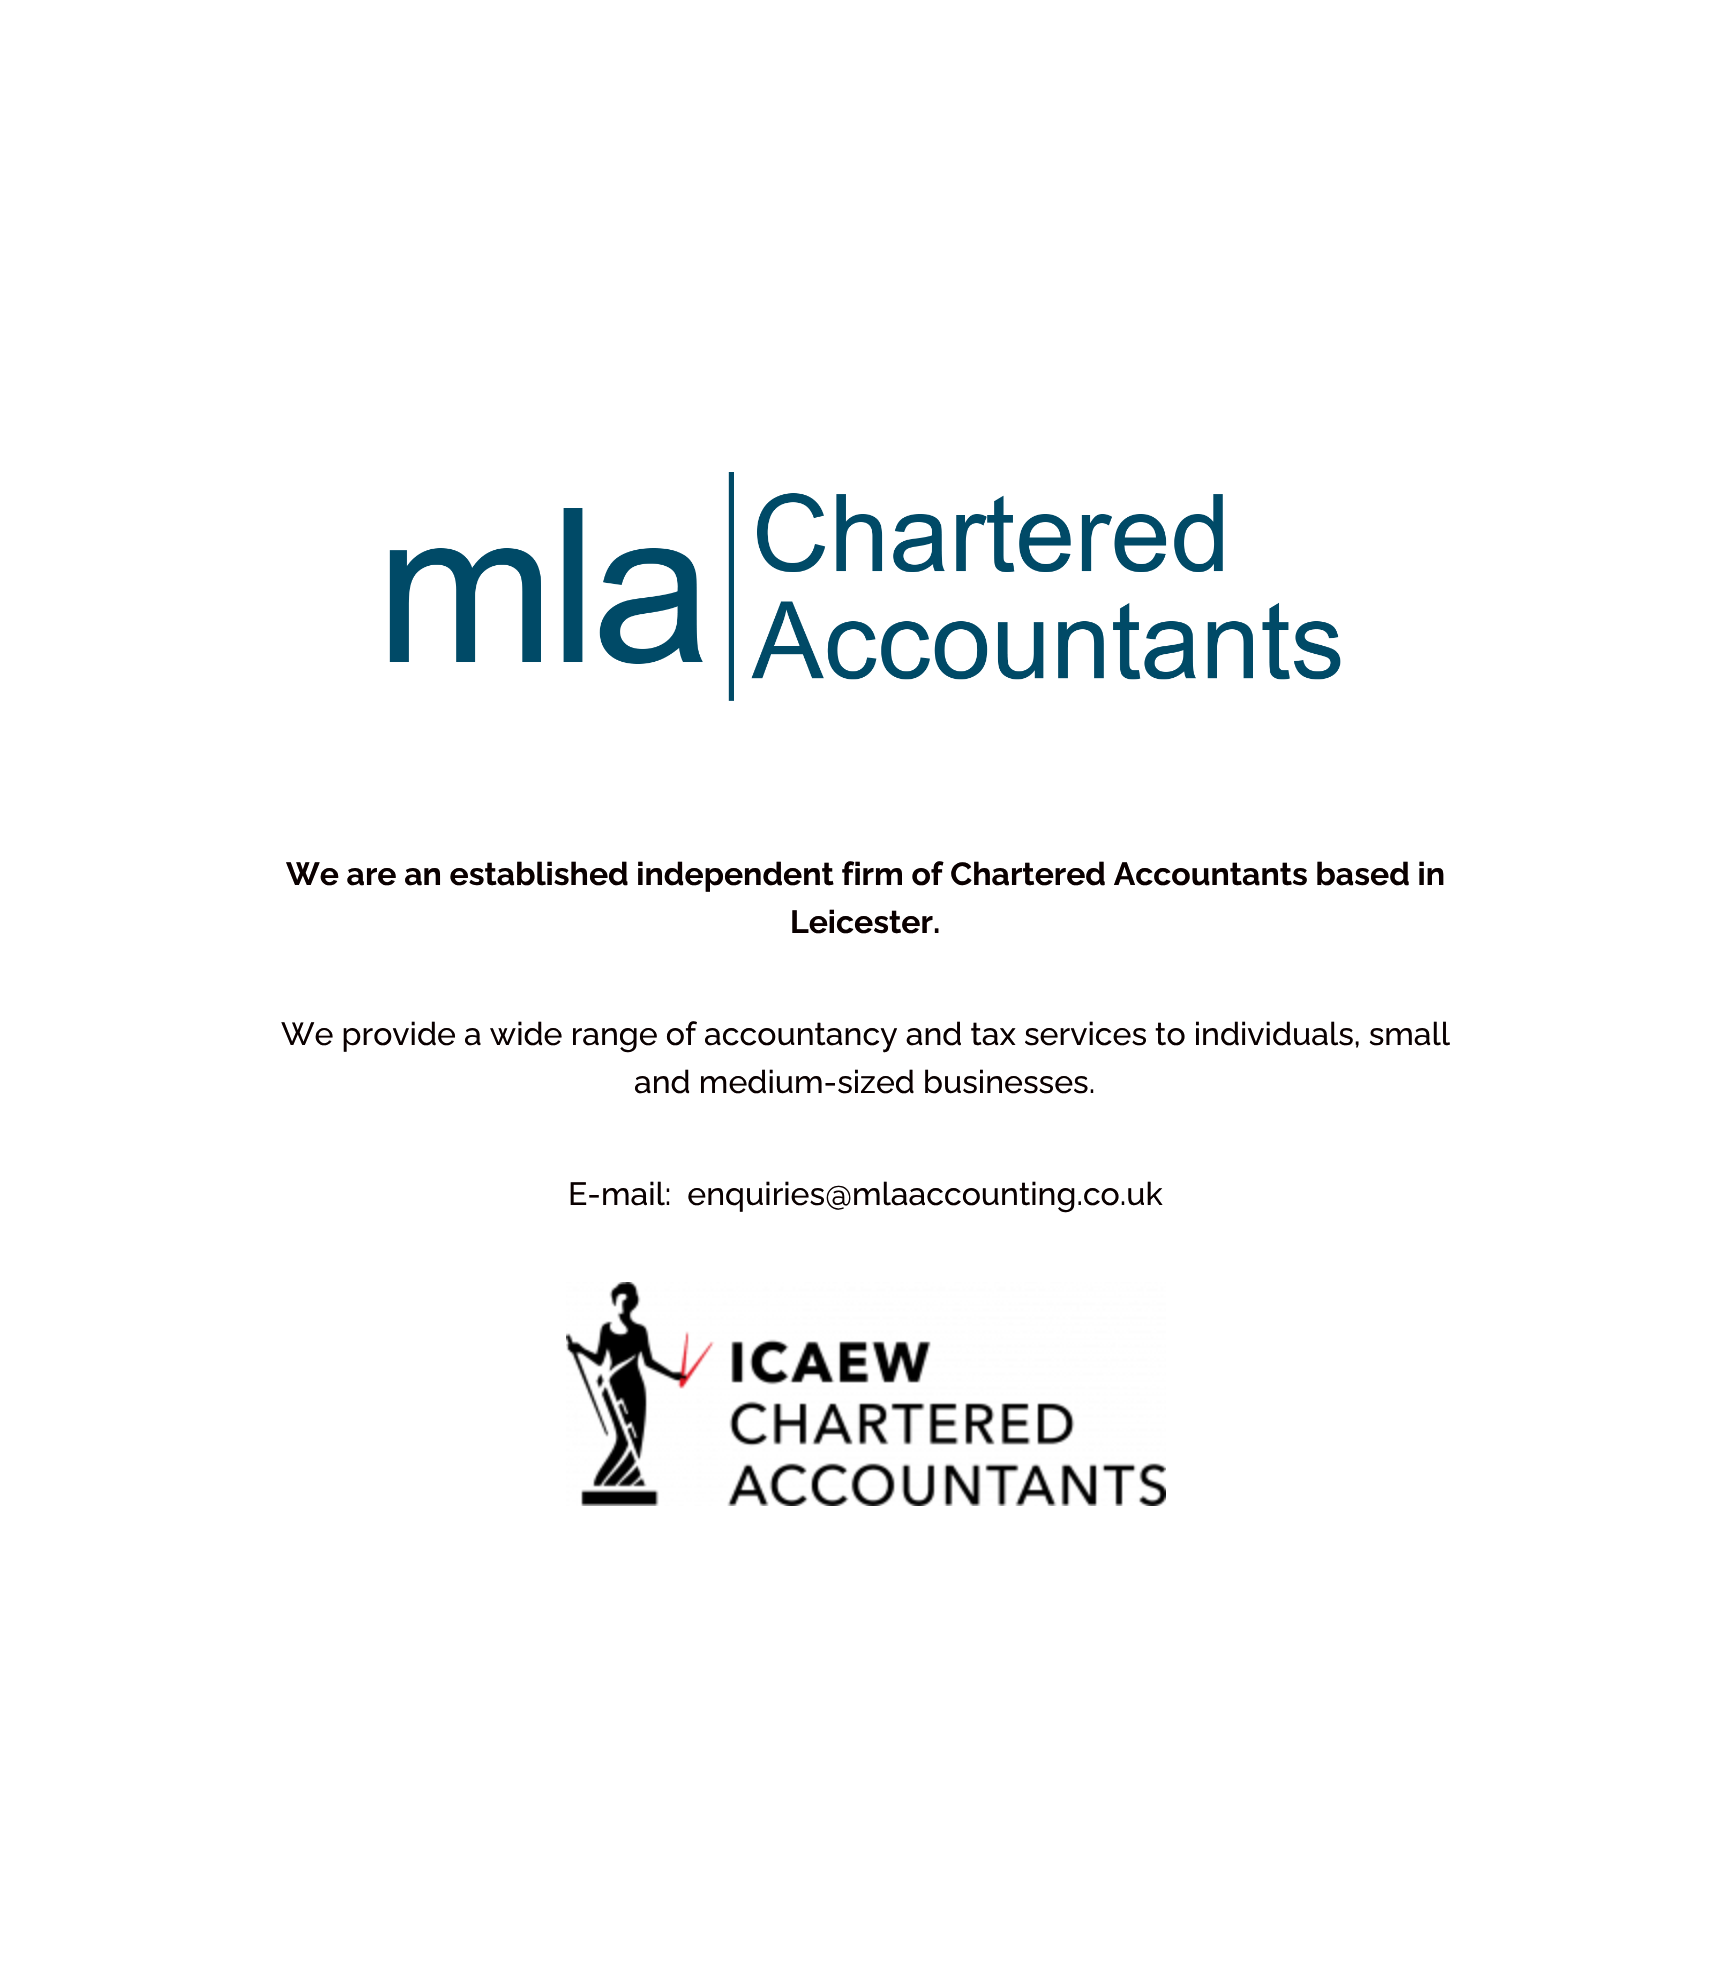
void draw(SkCanvas* canvas) {
  SkPaint paint;
  paint.setAntiAlias(true);
  auto face = [&](const char* family, int weight, float size, bool italic = false) {
    SkFontStyle style(weight, SkFontStyle::kNormal_Width,
      italic ? SkFontStyle::kItalic_Slant : SkFontStyle::kUpright_Slant);
    SkFont result(fontMgr->matchFamilyStyle(family, style), size);
    result.setSubpixel(true);
    return result;
  };
  auto paste = [&](const char* path, float x, float y, float w, float h) {
    auto image = SkImages::DeferredFromEncodedData(SkData::MakeFromFileName(path));
    canvas->drawImageRect(image, SkRect::MakeXYWH(x, y, w, h), SkSamplingOptions());
  };
  canvas->clear(0xffffffff);
  paste("img/1.png", 389, 472, 952, 229);
  paste("img/2.png", 566, 1282, 600, 224);
  auto f0 = face("Raleway", 700, 32);
  paint.setColor(0xff0a0000);
  canvas->drawString("We are an established independent firm of Chartered Accountants based in", 286, 885, f0, paint);
  canvas->drawString("Leicester.", 790, 933, f0, paint);
  auto f1 = face("Raleway", 500, 32);
  {
    const struct { const char* s; float x, y; } items[] = {
      {"We provide a wide range of accountancy and tax services to individuals, small", 281, 1045},
      {"and medium-sized businesses.", 634, 1093},
      {"E-mail:  enquiries@mlaaccounting.co.uk", 568, 1205},
    };
    for (auto [s, x, y] : items) {
      canvas->drawString(s, x, y, f1, paint);
    }
  }
}
